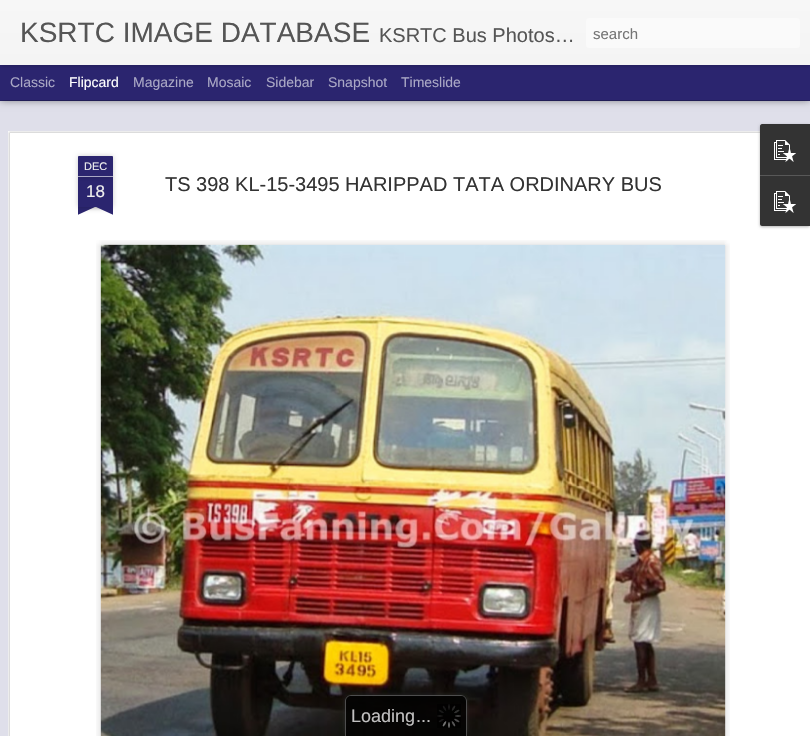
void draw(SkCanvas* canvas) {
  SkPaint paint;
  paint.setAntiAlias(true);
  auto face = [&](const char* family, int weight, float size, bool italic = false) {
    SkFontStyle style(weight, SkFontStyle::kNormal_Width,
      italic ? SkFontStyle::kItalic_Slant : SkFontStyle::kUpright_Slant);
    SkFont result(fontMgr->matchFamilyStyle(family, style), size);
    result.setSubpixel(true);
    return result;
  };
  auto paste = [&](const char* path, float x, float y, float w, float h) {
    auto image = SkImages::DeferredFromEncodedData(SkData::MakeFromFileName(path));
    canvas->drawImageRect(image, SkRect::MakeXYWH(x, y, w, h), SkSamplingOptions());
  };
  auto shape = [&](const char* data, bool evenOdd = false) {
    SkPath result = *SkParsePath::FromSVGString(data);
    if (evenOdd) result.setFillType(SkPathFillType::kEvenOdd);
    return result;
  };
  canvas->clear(0xff2b256f);
  paint.setColor(0xffdfdfea);
  canvas->drawRect(SkRect::MakeXYWH(0, 101, 810, 635), paint);
  paint.setColor(0x80000000);
  paint.setMaskFilter(SkMaskFilter::MakeBlur(kNormal_SkBlurStyle, 4));
  canvas->drawRect(SkRect::MakeXYWH(0, 65, 810, 35), paint);
  paint.setMaskFilter(nullptr);
  paint.setColor(0xff2b256f);
  canvas->drawRect(SkRect::MakeXYWH(0, 65, 810, 35), paint);
  paint.setColor(0x4d000000);
  paint.setMaskFilter(SkMaskFilter::MakeBlur(kNormal_SkBlurStyle, 2.5f));
  canvas->drawRect(SkRect::MakeXYWH(0, 0, 810, 65), paint);
  paint.setMaskFilter(nullptr);
  {
    const SkColor colors[] = {0xfff7f7f7, 0xfff4f4f4};
    const float stops[] = {0, 1};
    const SkPoint ends[] = {{0, 0}, {0, 65}};
    paint.setShader(SkGradientShader::MakeLinear(ends, colors, stops, 2, SkTileMode::kClamp));
    paint.setAlpha(255);
  }
  canvas->drawRect(SkRect::MakeXYWH(0, 0, 810, 65), paint);
  paint.setShader(nullptr);
  paint.setColor(0xfffafafa);
  canvas->drawRoundRect(SkRect::MakeXYWH(586, 18, 214, 30), 3, 3, paint);
  paint.setColor(0xffffffff);
  canvas->drawRect(SkRect::MakeXYWH(8, 131, 802, 605), paint);
  paste("img/1.png", 8, 131, 752, 605);
  paint.setColor(0x33000000);
  paint.setMaskFilter(SkMaskFilter::MakeBlur(kNormal_SkBlurStyle, 2.5f));
  canvas->drawRect(SkRect::MakeXYWH(78, 177, 35, 30), paint);
  paint.setMaskFilter(nullptr);
  paint.setColor(0xff2b256f);
  canvas->drawRect(SkRect::MakeXYWH(78, 177, 35, 30), paint);
  paint.setColor(0x33000000);
  paint.setMaskFilter(SkMaskFilter::MakeBlur(kNormal_SkBlurStyle, 2.5f));
  canvas->drawRoundRect(SkRect::MakeXYWH(78, 156, 35, 21), 1, 1, paint);
  paint.setMaskFilter(nullptr);
  paint.setColor(0xff2b256f);
  canvas->drawPath(shape("M79 156H112C112.5 156 113 156.5 113 157V177H78V157C78 156.5 78.5 156 79 156Z"), paint);
  paint.setColor(0xffaaa8c5);
  canvas->drawRect(SkRect::MakeXYWH(78, 176, 35, 1), paint);
  canvas->save();
  canvas->clipRect(SkRect::MakeXYWH(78, 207, 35, 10));
  paint.setColor(0x33000000);
  paint.setMaskFilter(SkMaskFilter::MakeBlur(kNormal_SkBlurStyle, 2.5f));
  canvas->drawRect(SkRect::MakeXYWH(69, 197, 50, 10), paint);
  paint.setMaskFilter(nullptr);
  canvas->restore();
  canvas->save();
  canvas->clipRect(SkRect::MakeXYWH(78, 207, 35, 10));
  paint.setColor(0xff2b256f);
  canvas->drawPath(shape("M69 208L115 187L119 196L73 217Z"), paint);
  canvas->restore();
  canvas->save();
  canvas->clipRect(SkRect::MakeXYWH(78, 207, 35, 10));
  paint.setColor(0x33000000);
  paint.setMaskFilter(SkMaskFilter::MakeBlur(kNormal_SkBlurStyle, 2.5f));
  canvas->drawRect(SkRect::MakeXYWH(72, 197, 50, 10), paint);
  paint.setMaskFilter(nullptr);
  canvas->restore();
  canvas->save();
  canvas->clipRect(SkRect::MakeXYWH(78, 207, 35, 10));
  paint.setColor(0xff2b256f);
  canvas->drawPath(shape("M76 187L122 208L118 217L72 196Z"), paint);
  canvas->restore();
  paste("img/2.png", 96, 240, 634, 496);
  paste("img/3.png", 100, 244, 626, 492);
  paint.setColor(0x4d000000);
  paint.setMaskFilter(SkMaskFilter::MakeBlur(kNormal_SkBlurStyle, 1.5f));
  canvas->drawRoundRect(SkRect::MakeXYWH(760, 125, 50, 102), 2, 2, paint);
  paint.setMaskFilter(nullptr);
  paint.setColor(0xff333333);
  canvas->drawPath(shape("M762 124H810V175H760V126C760 125 761 124 762 124Z"), paint);
  paste("img/4.png", 774, 140, 22, 22);
  canvas->drawPath(shape("M760 175H810V226H762C761 226 760 225 760 224Z"), paint);
  paint.setColor(0xff585858);
  canvas->drawRect(SkRect::MakeXYWH(760, 175, 50, 1), paint);
  paste("img/4.png", 774, 191, 22, 22);
  canvas->save();
  canvas->clipPath(shape("M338 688H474V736H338ZM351 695H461C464.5 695 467 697.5 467 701V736H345V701C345 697.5 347.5 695 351 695Z", true), true);
  paint.setColor(0xbf333333);
  paint.setMaskFilter(SkMaskFilter::MakeBlur(kNormal_SkBlurStyle, 2));
  canvas->drawRoundRect(SkRect::MakeXYWH(345, 695, 122, 41), 6, 6, paint);
  paint.setMaskFilter(nullptr);
  canvas->restore();
  paint.setColor(0xbf000000);
  canvas->drawPath(shape("M351 695H461C464.5 695 467 697.5 467 701V736H345V701C345 697.5 347.5 695 351 695Z"), paint);
  paint.setColor(0xbf666666);
  canvas->drawPath(shape("M351 695H461C464 695 467 698 467 701V736H345V701C345 698 348 695 351 695ZM351 696H461C464 696 466 698 466 701V736H346V701C346 698 348 696 351 696Z", true), paint);
  paste("img/5.png", 437, 704, 24, 24);
  auto f0 = face("Liberation Sans", 400, 28);
  paint.setColor(0xff555555);
  canvas->drawString("KSRTC IMAGE DATABASE", 20, 42, f0, paint);
  auto f1 = face("Liberation Sans", 400, 20);
  canvas->drawString("KSRTC Bus Photos…", 379, 42, f1, paint);
  auto f2 = face("Liberation Sans", 400, 15);
  paint.setColor(0xff757575);
  canvas->drawString("search", 593, 39, f2, paint);
  auto f3 = face("Liberation Sans", 400, 14);
  paint.setColor(0xffaaa8c5);
  canvas->drawString("Classic", 10, 87, f3, paint);
  paint.setColor(0xffffffff);
  canvas->drawString("Flipcard", 69, 87, f3, paint);
  paint.setColor(0xffaaa8c5);
  {
    const struct { const char* s; float x, y; } items[] = {
      {"Magazine", 133, 87},
      {"Mosaic", 207, 87},
      {"Sidebar", 266, 87},
      {"Snapshot", 328, 87},
      {"Timeslide", 401, 87},
    };
    for (auto [s, x, y] : items) {
      canvas->drawString(s, x, y, f3, paint);
    }
  }
  auto f4 = face("Liberation Sans", 400, 11);
  paint.setColor(0xffeeeeee);
  canvas->drawString("DEC", 84, 170, f4, paint);
  auto f5 = face("Liberation Sans", 400, 17);
  canvas->drawString("18", 86, 197, f5, paint);
  paint.setColor(0xff333333);
  canvas->drawString("TS 398 KL-15-3495 HARIPPAD TATA ORDINARY BUS", 165, 191, f1, paint);
  auto f6 = face("Liberation Sans", 400, 18);
  paint.setColor(0xffc1c0c0);
  canvas->drawString("Loading", 351, 722, f6, paint);
  canvas->drawString("...", 416, 722, f6, paint);
}
